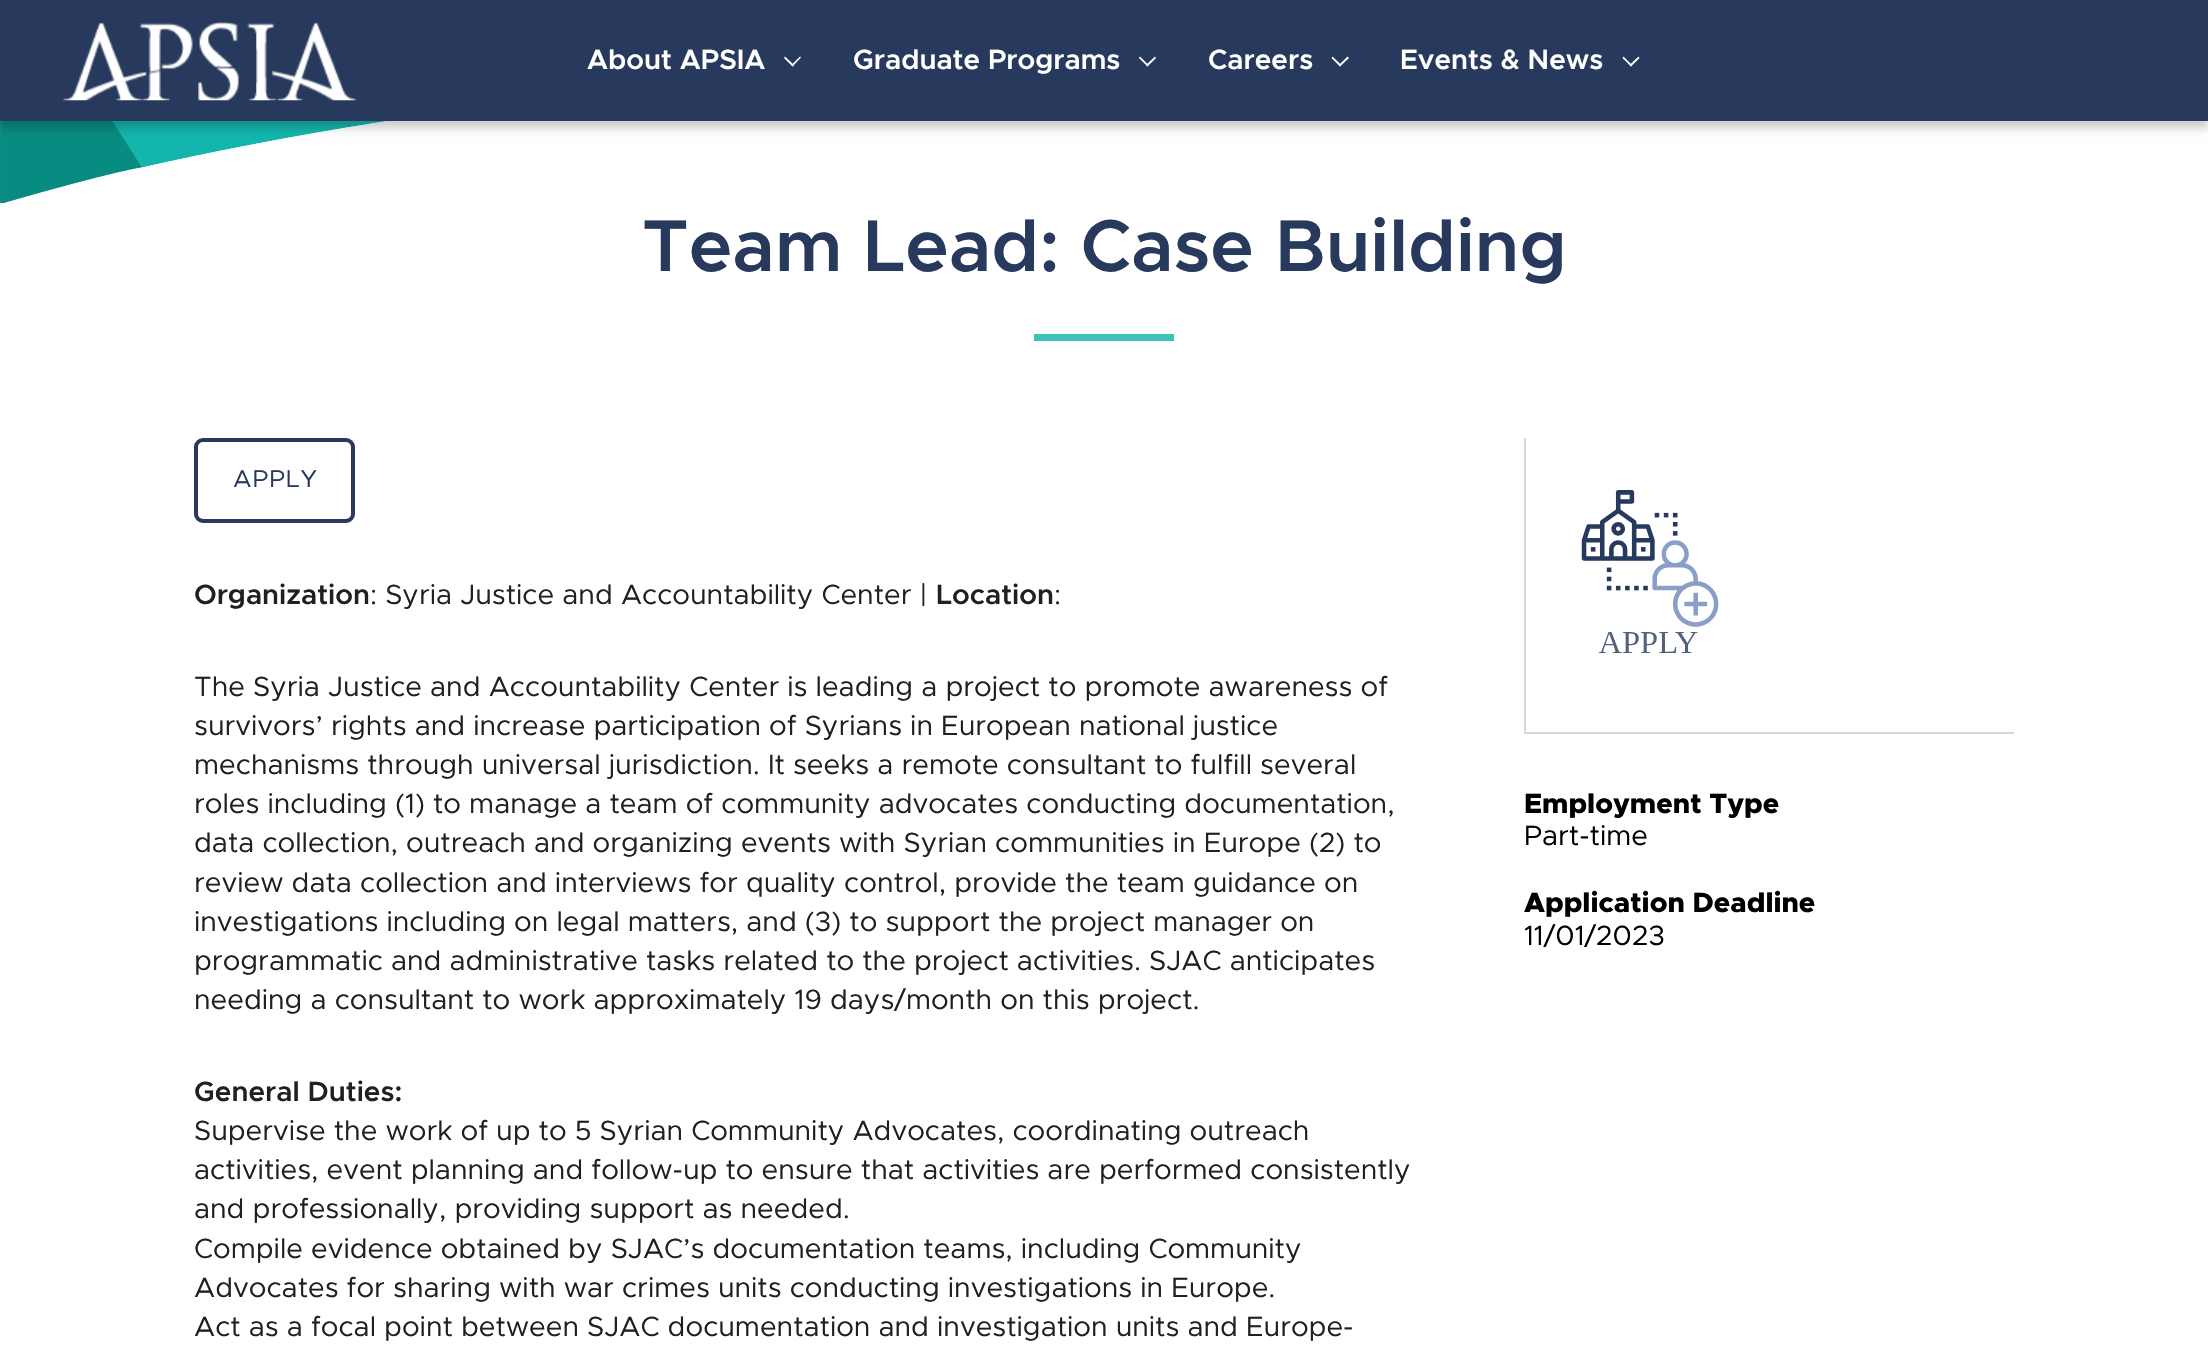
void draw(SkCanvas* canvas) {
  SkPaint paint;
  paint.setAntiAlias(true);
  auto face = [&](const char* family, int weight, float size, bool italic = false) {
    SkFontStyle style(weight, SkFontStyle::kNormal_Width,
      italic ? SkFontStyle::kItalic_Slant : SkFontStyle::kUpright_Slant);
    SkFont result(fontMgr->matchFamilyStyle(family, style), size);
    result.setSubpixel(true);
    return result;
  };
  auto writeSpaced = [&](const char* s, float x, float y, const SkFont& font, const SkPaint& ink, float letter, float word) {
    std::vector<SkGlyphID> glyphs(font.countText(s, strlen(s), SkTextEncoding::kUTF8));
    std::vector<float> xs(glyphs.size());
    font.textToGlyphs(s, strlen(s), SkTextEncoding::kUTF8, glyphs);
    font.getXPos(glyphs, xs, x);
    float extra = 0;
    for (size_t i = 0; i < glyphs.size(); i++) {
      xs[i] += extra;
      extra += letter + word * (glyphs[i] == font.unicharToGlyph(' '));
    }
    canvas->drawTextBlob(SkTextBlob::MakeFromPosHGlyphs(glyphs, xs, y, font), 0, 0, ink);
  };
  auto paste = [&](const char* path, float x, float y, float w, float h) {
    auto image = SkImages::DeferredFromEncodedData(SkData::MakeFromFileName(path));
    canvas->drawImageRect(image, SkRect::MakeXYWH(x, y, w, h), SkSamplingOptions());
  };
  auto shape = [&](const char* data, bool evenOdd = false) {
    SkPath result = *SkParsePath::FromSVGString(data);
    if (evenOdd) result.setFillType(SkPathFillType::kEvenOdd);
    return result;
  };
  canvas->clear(0xffffffff);
  paste("img/2.png", 0, 121, 2208, 82);
  paint.setColor(0x33000000);
  paint.setMaskFilter(SkMaskFilter::MakeBlur(kNormal_SkBlurStyle, 4.5f));
  canvas->drawRect(SkRect::MakeXYWH(0, -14, 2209, 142), paint);
  paint.setMaskFilter(nullptr);
  paint.setColor(0xff27395c);
  canvas->drawRect(SkRect::MakeXYWH(0, 0, 2208, 121), paint);
  paste("img/1.png", 63, 22, 294, 79);
  paint.setColor(0xffffffff);
  canvas->drawPath(shape("M800 56.5L801 57.5L792.5 66.5L791.5 65Z"), paint);
  canvas->drawPath(shape("M785 56.5L794 65L792.5 66.5L784 58Z"), paint);
  canvas->drawPath(shape("M1155 56.5L1156 58L1147.5 66.5L1146 65Z"), paint);
  canvas->drawPath(shape("M1140 56.5L1148.5 65L1147.5 66.5L1139 58Z"), paint);
  canvas->drawPath(shape("M1347.5 56.5L1349 58L1340 66.5L1339 65Z"), paint);
  canvas->drawPath(shape("M1332.5 56.5L1341.5 65L1340 66.5L1331.5 58Z"), paint);
  canvas->drawPath(shape("M1638.5 56.5L1639.5 58L1631 66.5L1629.5 65Z"), paint);
  canvas->drawPath(shape("M1623.5 56.5L1632 65L1631 66.5L1622.5 58Z"), paint);
  paint.setColor(0xff3bc2b9);
  canvas->drawRect(SkRect::MakeXYWH(1034, 334, 140, 7), paint);
  paint.setStroke(true);
  paint.setStrokeWidth(4);
  paint.setColor(0xff27395c);
  canvas->drawRoundRect(SkRect::MakeXYWH(196, 440, 157, 81), 7, 7, paint);
  paint.setStroke(false);
  paint.setColor(0xffd8d8d8);
  canvas->drawRect(SkRect::MakeXYWH(1524, 732, 490, 2), paint);
  canvas->drawRect(SkRect::MakeXYWH(1524, 438, 2, 295), paint);
  paste("img/3.png", 1581, 490, 138, 163);
  auto f0 = face("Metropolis", 600, 28);
  paint.setColor(0xffffffff);
  {
    const struct { const char* s; float x, y; } items[] = {
      {"About APSIA", 587, 69},
      {"Graduate Programs", 853, 69},
      {"Careers", 1208, 69},
      {"Events & News", 1400, 69},
    };
    for (auto [s, x, y] : items) {
      canvas->drawString(s, x, y, f0, paint);
    }
  }
  auto f1 = face("Metropolis", 600, 73.5f);
  paint.setColor(0xff27395c);
  canvas->drawString("Team Lead: Case Building", 642, 271, f1, paint);
  auto f2 = face("Metropolis", 400, 24.5f);
  writeSpaced("APPLY", 233, 487, f2, paint, 1, 0);
  paint.setColor(0xff231f20);
  canvas->drawString("Organization", 194, 604, f0, paint);
  auto f3 = face("Metropolis", 400, 28);
  canvas->drawString(": Syria Justice and Accountability Center |", 370, 604, f3, paint);
  canvas->drawString("Location", 936, 604, f0, paint);
  {
    const struct { const char* s; float x, y; } items[] = {
      {":", 1054, 604},
      {"The Syria Justice and Accountability Center is leading a project to promote awareness of", 194, 696},
      {"survivors’ rights and increase participation of Syrians in European national justice", 194, 735},
      {"mechanisms through universal jurisdiction. It seeks a remote consultant to fulfill several", 194, 774},
      {"roles including (1) to manage a team of community advocates conducting documentation,", 194, 813},
      {"data collection, outreach and organizing events with Syrian communities in Europe (2) to", 194, 852},
      {"review data collection and interviews for quality control, provide the team guidance on", 194, 892},
      {"investigations including on legal matters, and (3) to support the project manager on", 194, 931},
      {"programmatic and administrative tasks related to the project activities. SJAC anticipates", 194, 970},
      {"needing a consultant to work approximately 19 days/month on this project.", 194, 1009},
    };
    for (auto [s, x, y] : items) {
      canvas->drawString(s, x, y, f3, paint);
    }
  }
  canvas->drawString("General Duties:", 194, 1101, f0, paint);
  {
    const struct { const char* s; float x, y; } items[] = {
      {"Supervise the work of up to 5 Syrian Community Advocates, coordinating outreach", 194, 1140},
      {"activities, event planning and follow-up to ensure that activities are performed consistently", 194, 1179},
      {"and professionally, providing support as needed.", 194, 1218},
      {"Compile evidence obtained by SJAC’s documentation teams, including Community", 194, 1258},
      {"Advocates for sharing with war crimes units conducting investigations in Europe.", 194, 1297},
      {"Act as a focal point between SJAC documentation and investigation units and Europe-", 194, 1336},
    };
    for (auto [s, x, y] : items) {
      canvas->drawString(s, x, y, f3, paint);
    }
  }
  auto f4 = face("Metropolis", 800, 28);
  paint.setColor(0xff000000);
  canvas->drawString("Employment Type", 1524, 813, f4, paint);
  canvas->drawString("Part-time", 1524, 845, f3, paint);
  canvas->drawString("Application Deadline", 1524, 912, f4, paint);
  canvas->drawString("11/01/2023", 1524, 945, f3, paint);
}
